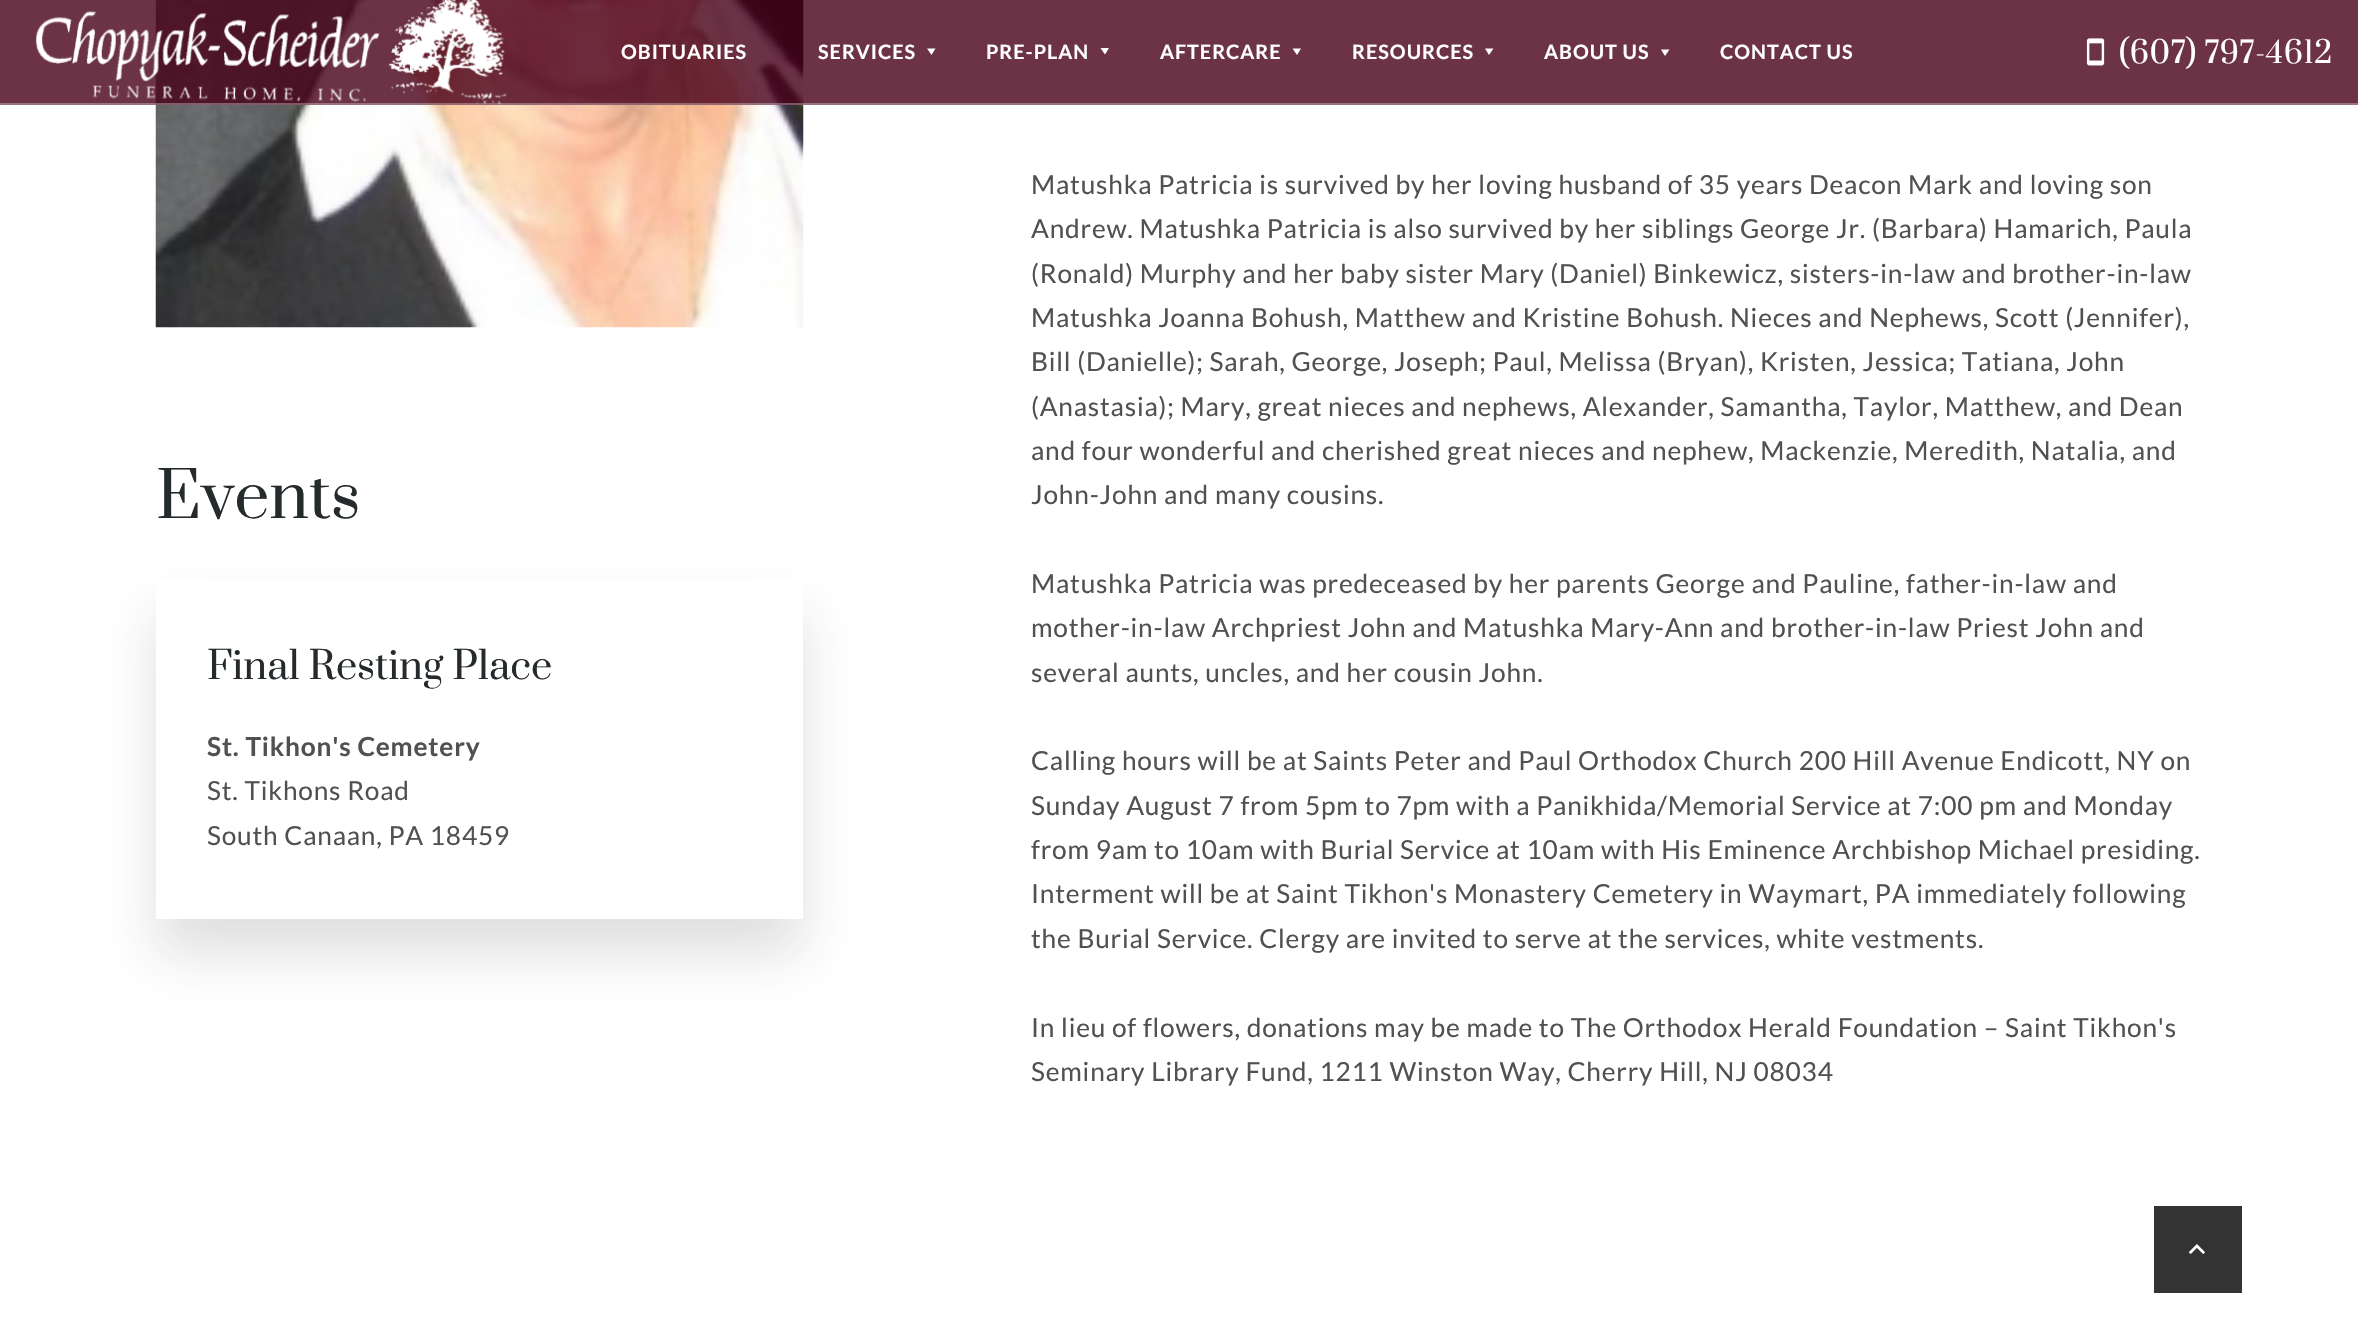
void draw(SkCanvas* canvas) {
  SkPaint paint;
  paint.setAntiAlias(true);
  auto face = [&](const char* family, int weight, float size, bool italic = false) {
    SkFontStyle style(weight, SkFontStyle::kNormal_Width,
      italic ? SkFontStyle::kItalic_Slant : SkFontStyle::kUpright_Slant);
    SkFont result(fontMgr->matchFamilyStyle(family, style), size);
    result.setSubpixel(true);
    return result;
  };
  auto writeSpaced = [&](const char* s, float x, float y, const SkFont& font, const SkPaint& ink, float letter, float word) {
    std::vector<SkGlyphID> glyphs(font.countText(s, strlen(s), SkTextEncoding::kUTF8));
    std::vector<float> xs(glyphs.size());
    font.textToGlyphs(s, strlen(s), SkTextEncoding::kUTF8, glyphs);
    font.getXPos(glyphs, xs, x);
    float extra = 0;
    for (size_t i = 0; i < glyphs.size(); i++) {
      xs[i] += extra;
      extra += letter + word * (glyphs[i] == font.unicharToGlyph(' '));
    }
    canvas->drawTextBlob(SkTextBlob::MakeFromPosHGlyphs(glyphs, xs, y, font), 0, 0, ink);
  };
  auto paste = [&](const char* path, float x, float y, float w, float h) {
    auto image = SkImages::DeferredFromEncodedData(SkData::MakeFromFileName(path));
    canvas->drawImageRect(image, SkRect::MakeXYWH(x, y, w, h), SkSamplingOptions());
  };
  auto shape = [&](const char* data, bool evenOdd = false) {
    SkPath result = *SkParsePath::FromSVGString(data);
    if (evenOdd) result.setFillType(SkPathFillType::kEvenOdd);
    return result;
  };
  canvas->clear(0xffffffff);
  paste("img/3.png", 155, 0, 649, 328);
  paint.setColor(0xcc470019);
  canvas->drawRect(SkRect::MakeXYWH(0, 0, 2358, 105), paint);
  paint.setColor(0x4dffffff);
  canvas->drawRect(SkRect::MakeXYWH(0, 103, 2358, 2), paint);
  paste("img/1.png", 36, 0, 471, 110);
  paint.setColor(0xffffffff);
  canvas->drawPath(shape("M935.5 48.5H927L931.5 55Z"), paint);
  canvas->drawPath(shape("M1109 48H1100.5L1105 54.5Z"), paint);
  canvas->drawPath(shape("M1301 48.5H1292.5L1297 55Z"), paint);
  canvas->drawPath(shape("M1493.5 48.5H1485L1489 55Z"), paint);
  canvas->drawPath(shape("M1669.5 49.5H1661L1665 56Z"), paint);
  paste("img/2.png", 2086, 38, 19, 28);
  canvas->save();
  canvas->clipPath(shape("M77 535H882V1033H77ZM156 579H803V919H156Z", true), true);
  paint.setColor(0x26252a2d);
  paint.setMaskFilter(SkMaskFilter::MakeBlur(kNormal_SkBlurStyle, 26));
  canvas->drawRect(SkRect::MakeXYWH(156, 614, 647, 340), paint);
  paint.setMaskFilter(nullptr);
  canvas->restore();
  paint.setColor(0xff333333);
  canvas->drawRect(SkRect::MakeXYWH(2154, 1206, 88, 87), paint);
  paste("img/4.png", 2188, 1244, 17, 10);
  auto f0 = face("Lato", 700, 19.75f);
  paint.setColor(0xffffffff);
  {
    const struct { const char* s; float x, y; } items[] = {
      {"OBITUARIES", 621, 59},
      {"SERVICES", 818, 59},
      {"PRE-PLAN", 986, 59},
      {"AFTERCARE", 1160, 59},
      {"RESOURCES", 1352, 59},
      {"ABOUT US", 1544, 59},
      {"CONTACT US", 1720, 59},
    };
    for (auto [s, x, y] : items) {
      writeSpaced(s, x, y, f0, paint, 1, 0);
    }
  }
  auto f1 = face("Prata", 400, 29.5f);
  writeSpaced("(607) 797-4612", 2119, 63, f1, paint, 0.6f, 0);
  auto f2 = face("Lato", 400, 26.25f);
  paint.setColor(0xff515151);
  {
    const struct { const char* s; float x, y; } items[] = {
      {"Matushka Patricia is survived by her loving husband of 35 years Deacon Mark and loving son", 1031, 194},
      {"Andrew. Matushka Patricia is also survived by her siblings George Jr. (Barbara) Hamarich, Paula", 1031, 238},
      {"(Ronald) Murphy and her baby sister Mary (Daniel) Binkewicz, sisters-in-law and brother-in-law", 1031, 283},
      {"Matushka Joanna Bohush, Matthew and Kristine Bohush. Nieces and Nephews, Scott (Jennifer),", 1031, 327},
      {"Bill (Danielle); Sarah, George, Joseph; Paul, Melissa (Bryan), Kristen, Jessica; Tatiana, John", 1031, 371},
      {"(Anastasia); Mary, great nieces and nephews, Alexander, Samantha, Taylor, Matthew, and Dean", 1031, 416},
      {"and four wonderful and cherished great nieces and nephew, Mackenzie, Meredith, Natalia, and", 1031, 460},
      {"John-John and many cousins.", 1031, 504},
      {"Matushka Patricia was predeceased by her parents George and Pauline, father-in-law and", 1031, 593},
      {"mother-in-law Archpriest John and Matushka Mary-Ann and brother-in-law Priest John and", 1031, 637},
      {"several aunts, uncles, and her cousin John.", 1031, 682},
      {"Calling hours will be at Saints Peter and Paul Orthodox Church 200 Hill Avenue Endicott, NY on", 1031, 770},
      {"Sunday August 7 from 5pm to 7pm with a Panikhida/Memorial Service at 7:00 pm and Monday", 1031, 815},
      {"from 9am to 10am with Burial Service at 10am with His Eminence Archbishop Michael presiding.", 1031, 859},
      {"Interment will be at Saint Tikhon's Monastery Cemetery in Waymart, PA immediately following", 1031, 903},
      {"the Burial Service. Clergy are invited to serve at the services, white vestments.", 1031, 948},
      {"In lieu of flowers, donations may be made to The Orthodox Herald Foundation – Saint Tikhon's", 1031, 1037},
      {"Seminary Library Fund, 1211 Winston Way, Cherry Hill, NJ 08034", 1031, 1081},
    };
    for (auto [s, x, y] : items) {
      writeSpaced(s, x, y, f2, paint, 0.8f, 0);
    }
  }
  auto f3 = face("Prata", 400, 62.5f);
  paint.setColor(0xff252a2d);
  canvas->drawString("Events", 156, 518, f3, paint);
  auto f4 = face("Prata", 400, 37.75f);
  canvas->drawString("Final Resting Place", 207, 679, f4, paint);
  auto f5 = face("Lato", 700, 26.25f);
  paint.setColor(0xff515151);
  writeSpaced("St. Tikhon's Cemetery", 207, 756, f5, paint, 0.8f, 0);
  writeSpaced("St. Tikhons Road", 207, 800, f2, paint, 0.8f, 0);
  writeSpaced("South Canaan, PA 18459", 207, 845, f2, paint, 0.8f, 0);
}
